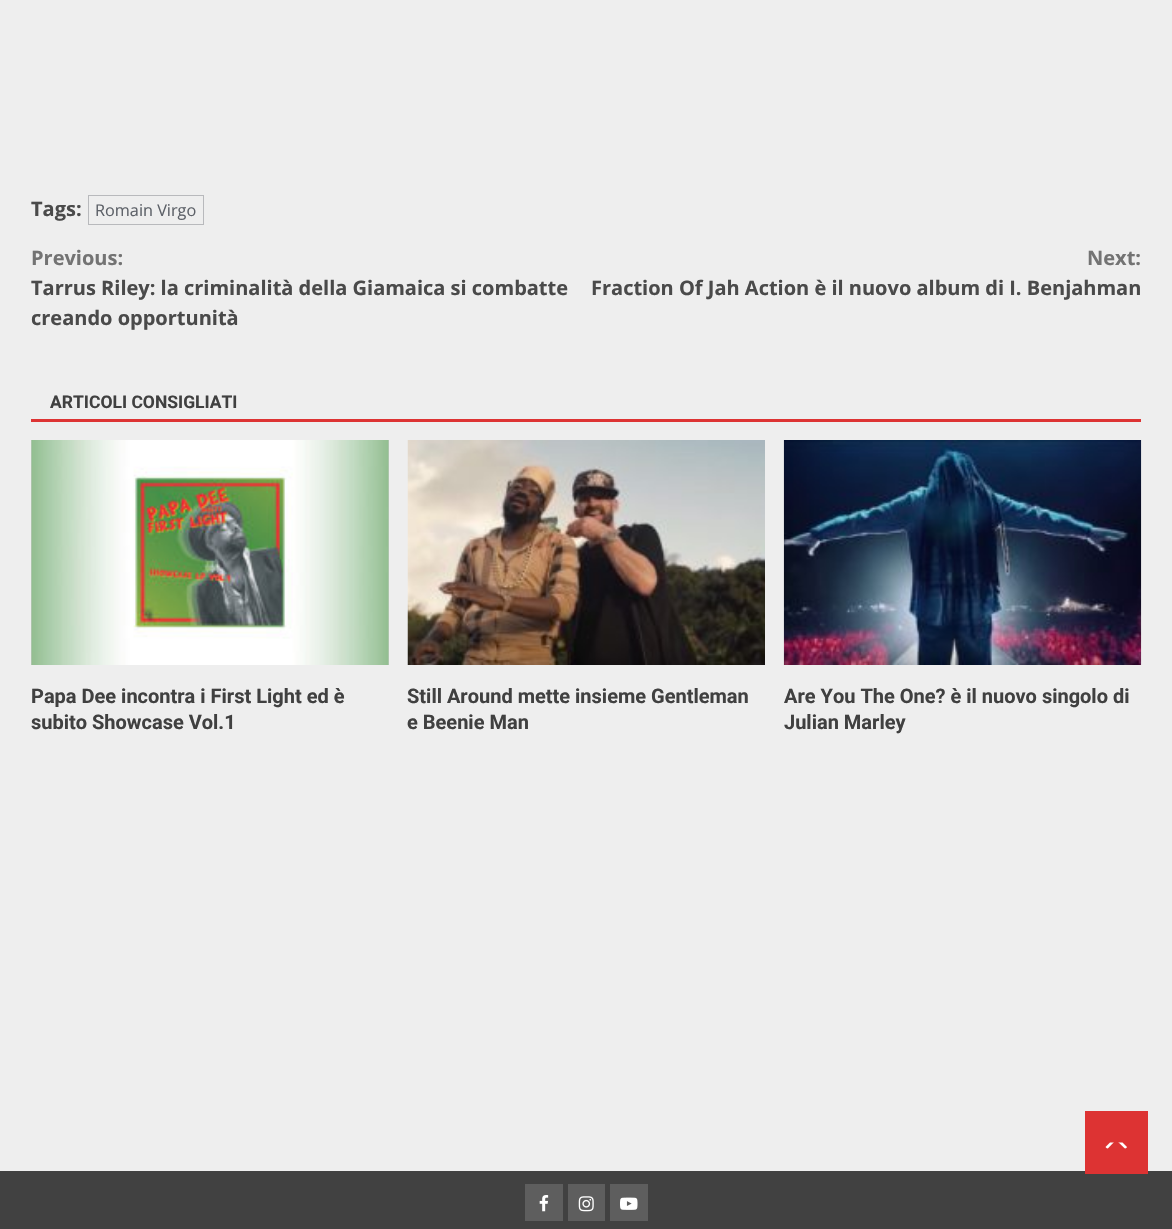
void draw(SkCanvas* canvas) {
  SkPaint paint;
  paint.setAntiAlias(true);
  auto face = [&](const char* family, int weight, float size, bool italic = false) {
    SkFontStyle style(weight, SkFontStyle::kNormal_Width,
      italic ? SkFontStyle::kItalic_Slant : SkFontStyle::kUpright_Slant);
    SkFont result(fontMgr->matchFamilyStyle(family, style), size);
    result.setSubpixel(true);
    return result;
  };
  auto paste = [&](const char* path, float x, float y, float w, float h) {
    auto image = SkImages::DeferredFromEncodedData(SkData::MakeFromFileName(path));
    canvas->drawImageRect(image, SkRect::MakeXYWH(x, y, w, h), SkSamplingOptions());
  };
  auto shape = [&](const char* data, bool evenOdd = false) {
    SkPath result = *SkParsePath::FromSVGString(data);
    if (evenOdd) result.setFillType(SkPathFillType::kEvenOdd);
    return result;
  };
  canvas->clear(0xffeeeeee);
  paint.setStroke(true);
  paint.setStrokeWidth(1);
  paint.setColor(0xffb8b9bc);
  canvas->drawRect(SkRect::MakeXYWH(88.5f, 195.5f, 115, 29), paint);
  paint.setStroke(false);
  paint.setColor(0xffdd3333);
  canvas->drawRect(SkRect::MakeXYWH(31, 419, 1110, 3), paint);
  paint.setColor(0xffcccccc);
  canvas->drawRect(SkRect::MakeXYWH(31, 440, 358, 225), paint);
  paste("img/1.png", 31, 440, 358, 225);
  paste("img/2.png", 407, 440, 358, 225);
  paste("img/3.png", 783, 440, 359, 225);
  paint.setColor(0xff414141);
  canvas->drawRect(SkRect::MakeXYWH(0, 1171, 1172, 58), paint);
  paint.setColor(0xff5e5e5e);
  canvas->drawRect(SkRect::MakeXYWH(525, 1184, 38, 37), paint);
  paste("img/4.png", 539, 1195, 10, 17);
  canvas->drawRect(SkRect::MakeXYWH(568, 1184, 37, 37), paint);
  paste("img/5.png", 578, 1196, 16, 16);
  canvas->drawRect(SkRect::MakeXYWH(610, 1184, 38, 37), paint);
  paste("img/6.png", 620, 1197, 18, 13);
  paint.setColor(0xffdd3333);
  canvas->drawRect(SkRect::MakeXYWH(1085, 1111, 63, 63), paint);
  paint.setColor(0xffffffff);
  canvas->drawPath(shape("M1108.5 1149C1107 1148.5 1106.5 1148 1105.5 1147L1110 1142.5H1122.5L1127 1147C1126.5 1148 1125.5 1148.5 1124 1149Z"), paint);
  paint.setColor(0xffdd3333);
  canvas->drawPath(shape("M1129 1152.5H1104L1116 1140Z"), paint);
  auto f0 = face("Open Sans", 700, 20);
  paint.setColor(0xff4a4a4a);
  canvas->drawString("Tags:", 31, 216, f0, paint);
  auto f1 = face("Open Sans", 400, 16.25f);
  paint.setColor(0xff5d6168);
  canvas->drawString("Romain Virgo", 95, 216, f1, paint);
  paint.setColor(0xff737373);
  canvas->drawString("Previous:", 31, 265, f0, paint);
  paint.setColor(0xff4a4a4a);
  canvas->drawString("Tarrus Riley: la criminalità della Giamaica si combatte", 31, 295, f0, paint);
  canvas->drawString("creando opportunità", 31, 325, f0, paint);
  paint.setColor(0xff737373);
  canvas->drawString("Next:", 1087, 265, f0, paint);
  paint.setColor(0xff4a4a4a);
  canvas->drawString("Fraction Of Jah Action è il nuovo album di I. Benjahman", 591, 295, f0, paint);
  auto f2 = face("Roboto", 700, 17.5f);
  paint.setColor(0xff404040);
  canvas->drawString("ARTICOLI CONSIGLIATI", 50, 408, f2, paint);
  auto f3 = face("Roboto", 700, 20);
  {
    const struct { const char* s; float x, y; } items[] = {
      {"Papa Dee incontra i First Light ed è", 31, 703},
      {"subito Showcase Vol.1", 31, 729},
      {"Still Around mette insieme Gentleman", 407, 703},
      {"e Beenie Man", 407, 729},
      {"Are You The One? è il nuovo singolo di", 784, 703},
      {"Julian Marley", 784, 729},
    };
    for (auto [s, x, y] : items) {
      canvas->drawString(s, x, y, f3, paint);
    }
  }
}
